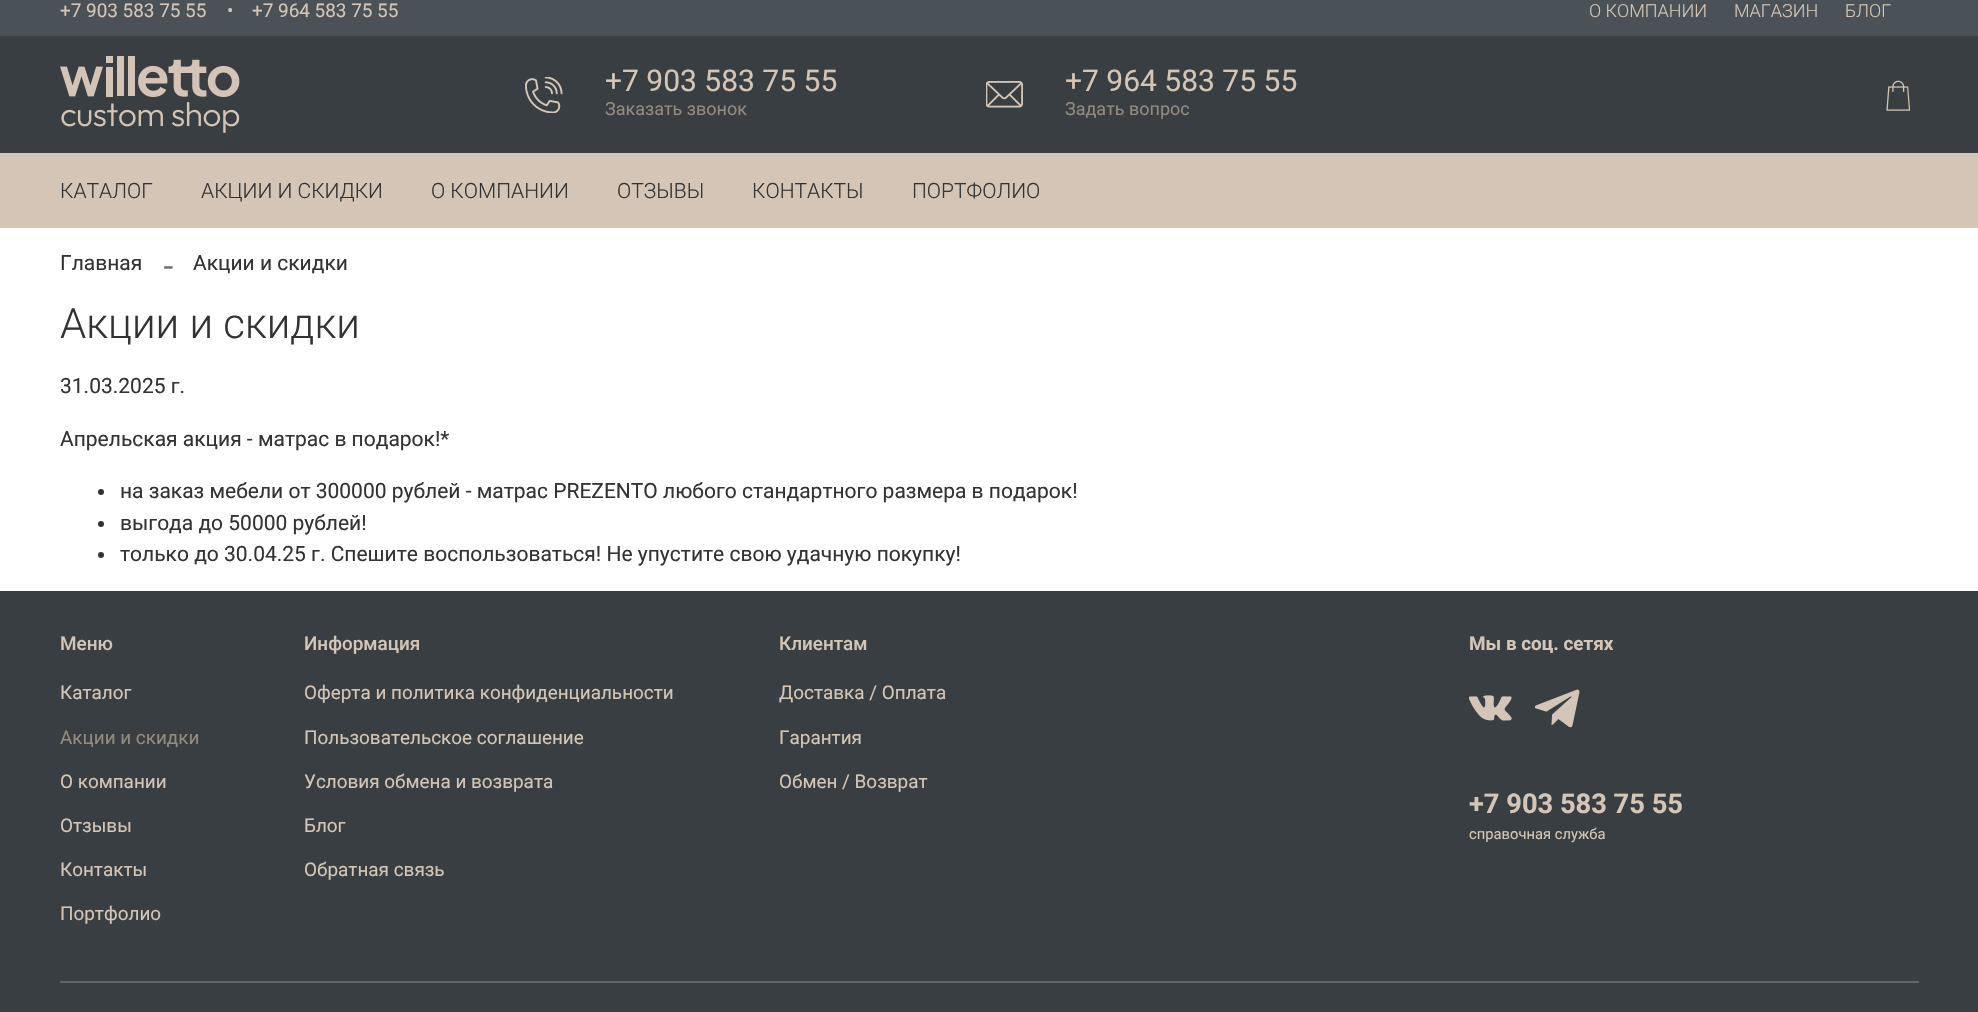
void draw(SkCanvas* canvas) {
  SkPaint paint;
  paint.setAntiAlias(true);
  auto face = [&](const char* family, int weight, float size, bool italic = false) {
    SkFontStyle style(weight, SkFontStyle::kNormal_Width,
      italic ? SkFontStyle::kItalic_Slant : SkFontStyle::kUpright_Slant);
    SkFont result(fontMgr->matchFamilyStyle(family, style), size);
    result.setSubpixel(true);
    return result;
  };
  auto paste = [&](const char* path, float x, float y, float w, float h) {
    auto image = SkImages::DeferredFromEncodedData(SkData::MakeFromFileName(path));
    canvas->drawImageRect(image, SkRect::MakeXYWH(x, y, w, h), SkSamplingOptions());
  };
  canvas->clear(0xffffffff);
  paint.setColor(0xff4a5257);
  canvas->drawRect(SkRect::MakeXYWH(0, 0, 1978, 36), paint);
  paint.setColor(0xff383e42);
  canvas->drawRect(SkRect::MakeXYWH(0, 36, 1978, 117), paint);
  paste("img/1.png", 60, 56, 180, 77);
  paste("img/2.png", 525, 77, 38, 36);
  paste("img/3.png", 986, 81, 37, 27);
  paste("img/4.png", 1886, 80, 25, 31);
  paint.setColor(0xffd4c5b6);
  canvas->drawRect(SkRect::MakeXYWH(0, 153, 1978, 75), paint);
  paint.setColor(0xff333333);
  canvas->drawCircle(101, 492, 3, paint);
  canvas->drawCircle(101, 524, 3, paint);
  canvas->drawCircle(101, 555, 3, paint);
  paint.setColor(0xff383e42);
  canvas->drawRect(SkRect::MakeXYWH(0, 591, 1978, 421), paint);
  paste("img/5.png", 1469, 695, 43, 26);
  paste("img/6.png", 1535, 689, 45, 39);
  paint.setColor(0xff5c666c);
  canvas->drawRect(SkRect::MakeXYWH(60, 981, 1859, 2), paint);
  auto f0 = face("Roboto", 400, 18.9f);
  paint.setColor(0xffd4c5b6);
  {
    const struct { const char* s; float x, y; } items[] = {
      {"+7 903 583 75 55", 60, 17},
      {"•", 227, 17},
      {"+7 964 583 75 55", 252, 17},
    };
    for (auto [s, x, y] : items) {
      canvas->drawString(s, x, y, f0, paint);
    }
  }
  auto f1 = face("Roboto", 300, 18);
  {
    const struct { const char* s; float x, y; } items[] = {
      {"О КОМПАНИИ", 1589, 17},
      {"МАГАЗИН", 1734, 17},
      {"БЛОГ", 1845, 17},
    };
    for (auto [s, x, y] : items) {
      canvas->drawString(s, x, y, f1, paint);
    }
  }
  auto f2 = face("Roboto", 400, 30);
  canvas->drawString("+7 903 583 75 55", 605, 91, f2, paint);
  auto f3 = face("Roboto", 400, 18);
  paint.setColor(0xff948a7f);
  canvas->drawString("Заказать звонок", 605, 115, f3, paint);
  paint.setColor(0xffd4c5b6);
  canvas->drawString("+7 964 583 75 55", 1065, 91, f2, paint);
  paint.setColor(0xff948a7f);
  canvas->drawString("Задать вопрос", 1065, 115, f3, paint);
  auto f4 = face("Roboto", 300, 21);
  paint.setColor(0xff333333);
  {
    const struct { const char* s; float x, y; } items[] = {
      {"КАТАЛОГ", 60, 198},
      {"АКЦИИ И СКИДКИ", 201, 198},
      {"О КОМПАНИИ", 431, 198},
      {"ОТЗЫВЫ", 617, 198},
      {"КОНТАКТЫ", 752, 198},
      {"ПОРТФОЛИО", 912, 198},
    };
    for (auto [s, x, y] : items) {
      canvas->drawString(s, x, y, f4, paint);
    }
  }
  auto f5 = face("Roboto", 400, 21);
  canvas->drawString("Главная", 60, 270, f5, paint);
  auto f6 = face("Liberation Serif", 400, 32);
  paint.setColor(0xff707070);
  canvas->drawString("-", 163, 275, f6, paint);
  paint.setColor(0xff333333);
  canvas->drawString("Акции и скидки", 193, 270, f5, paint);
  auto f7 = face("Roboto", 300, 42);
  canvas->drawString("Акции и скидки", 60, 338, f7, paint);
  {
    const struct { const char* s; float x, y; } items[] = {
      {"31.03.2025 г.", 60, 393},
      {"Апрельская акция - матрас в подарок!*", 60, 446},
      {"на заказ мебели от 300000 рублей - матрас PREZENTO любого стандартного размера в подарок!", 120, 498},
      {"выгода до 50000 рублей!", 120, 530},
      {"только до 30.04.25 г. Спешите воспользоваться! Не упустите свою удачную покупку!", 120, 561},
    };
    for (auto [s, x, y] : items) {
      canvas->drawString(s, x, y, f5, paint);
    }
  }
  auto f8 = face("Roboto", 500, 18.9f);
  paint.setColor(0xffd4c5b6);
  canvas->drawString("Меню", 60, 650, f8, paint);
  canvas->drawString("Каталог", 60, 699, f0, paint);
  paint.setColor(0xff948a7f);
  canvas->drawString("Акции и скидки", 60, 744, f0, paint);
  paint.setColor(0xffd4c5b6);
  {
    const struct { const char* s; float x, y; } items[] = {
      {"О компании", 60, 788},
      {"Отзывы", 60, 832},
      {"Контакты", 60, 876},
      {"Портфолио", 60, 920},
    };
    for (auto [s, x, y] : items) {
      canvas->drawString(s, x, y, f0, paint);
    }
  }
  canvas->drawString("Информация", 304, 650, f8, paint);
  {
    const struct { const char* s; float x, y; } items[] = {
      {"Оферта и политика конфиденциальности", 304, 699},
      {"Пользовательское соглашение", 304, 744},
      {"Условия обмена и возврата", 304, 788},
      {"Блог", 304, 832},
      {"Обратная связь", 304, 876},
    };
    for (auto [s, x, y] : items) {
      canvas->drawString(s, x, y, f0, paint);
    }
  }
  canvas->drawString("Клиентам", 779, 650, f8, paint);
  {
    const struct { const char* s; float x, y; } items[] = {
      {"Доставка / Оплата", 779, 699},
      {"Гарантия", 779, 744},
      {"Обмен / Возврат", 779, 788},
    };
    for (auto [s, x, y] : items) {
      canvas->drawString(s, x, y, f0, paint);
    }
  }
  auto f9 = face("Roboto", 700, 18.9f);
  canvas->drawString("Мы в соц. сетях", 1469, 650, f9, paint);
  auto f10 = face("Roboto", 700, 27.25f);
  canvas->drawString("+7 903 583 75 55", 1469, 813, f10, paint);
  auto f11 = face("Roboto", 400, 14.75f);
  canvas->drawString("справочная служба", 1469, 839, f11, paint);
}
